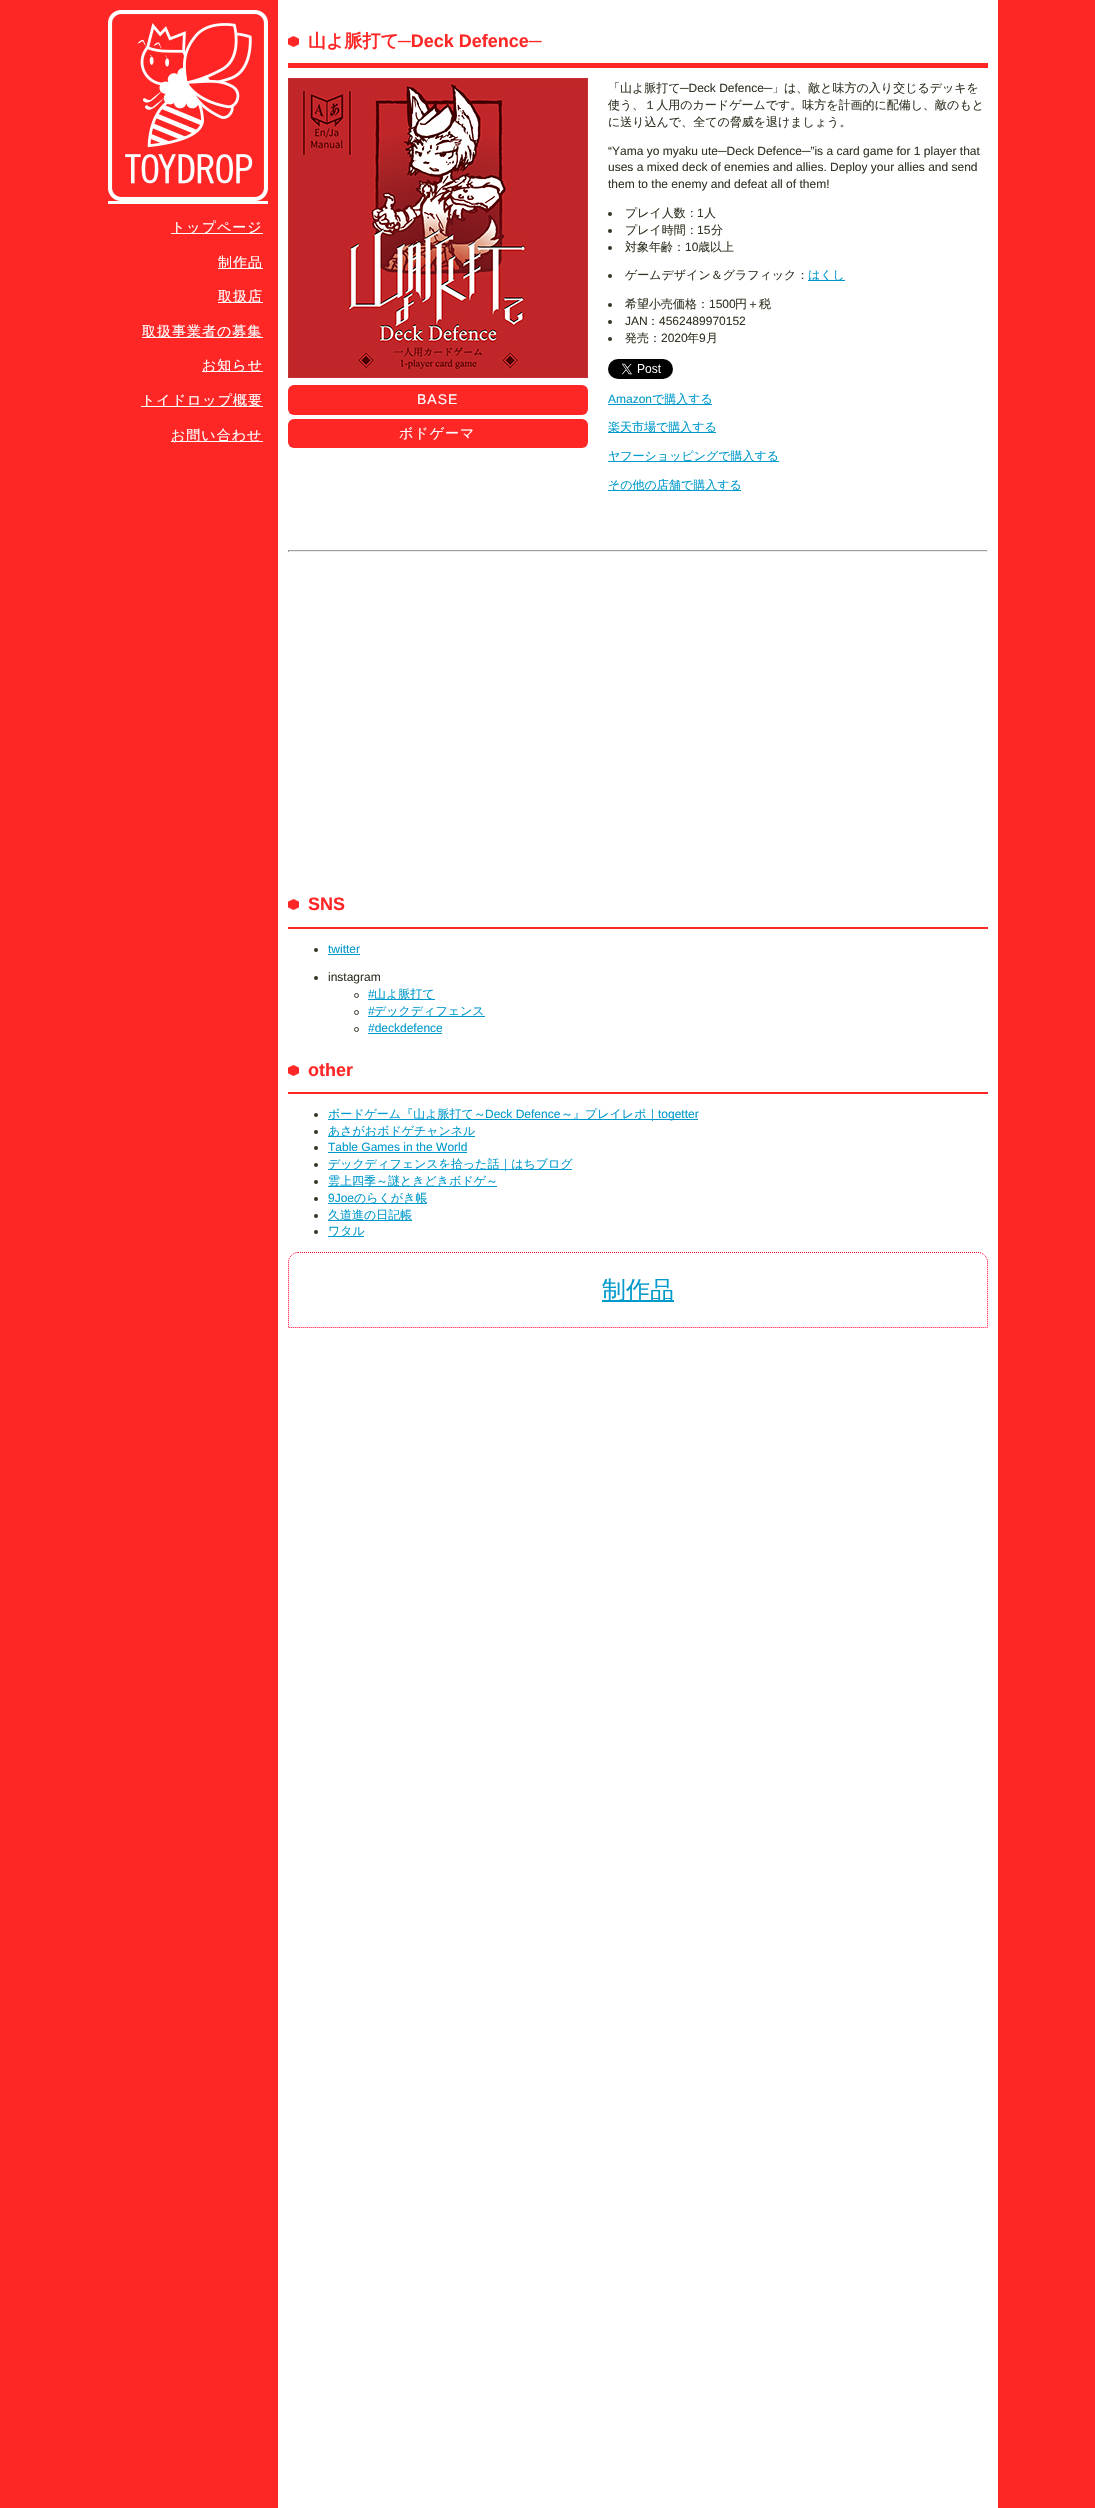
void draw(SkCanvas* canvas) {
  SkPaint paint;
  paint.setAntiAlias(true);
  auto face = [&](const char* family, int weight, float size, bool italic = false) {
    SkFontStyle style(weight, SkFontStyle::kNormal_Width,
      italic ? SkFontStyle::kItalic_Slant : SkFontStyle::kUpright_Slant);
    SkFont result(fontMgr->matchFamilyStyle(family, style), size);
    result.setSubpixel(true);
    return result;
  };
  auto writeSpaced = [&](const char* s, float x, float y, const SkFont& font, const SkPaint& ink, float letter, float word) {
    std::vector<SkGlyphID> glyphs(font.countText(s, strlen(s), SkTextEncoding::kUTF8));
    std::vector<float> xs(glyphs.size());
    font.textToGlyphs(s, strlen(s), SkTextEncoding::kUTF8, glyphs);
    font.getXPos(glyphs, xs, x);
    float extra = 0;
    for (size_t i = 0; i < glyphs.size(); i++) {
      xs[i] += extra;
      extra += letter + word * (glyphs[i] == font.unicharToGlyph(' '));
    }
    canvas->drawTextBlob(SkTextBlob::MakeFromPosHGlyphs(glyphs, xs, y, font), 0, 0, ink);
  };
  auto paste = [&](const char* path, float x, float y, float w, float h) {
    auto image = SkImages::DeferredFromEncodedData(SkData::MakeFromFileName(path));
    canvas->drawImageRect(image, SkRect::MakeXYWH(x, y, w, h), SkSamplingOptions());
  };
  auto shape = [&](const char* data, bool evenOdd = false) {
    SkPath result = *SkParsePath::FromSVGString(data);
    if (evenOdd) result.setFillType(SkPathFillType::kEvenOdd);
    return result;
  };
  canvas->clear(0xffff2626);
  paint.setColor(0xffffffff);
  canvas->drawRect(SkRect::MakeXYWH(278, 0, 720, 2508), paint);
  paste("img/1.png", 108, 10, 160, 191);
  {
    const struct { float x, y, w, h; SkColor color; } items[] = {
      {108, 201, 160, 3, 0xffffffff},
      {171, 233, 92, 1, 0xffffffff},
      {218, 268, 45, 1, 0xffffffff},
      {218, 302, 45, 1, 0xffffffff},
      {142, 337, 121, 1, 0xffffffff},
      {202, 371, 61, 1, 0xffffffff},
      {141, 406, 122, 1, 0xffffffff},
      {171, 441, 92, 1, 0xffffffff},
    };
    for (auto [x, y, w, h, color] : items) {
      paint.setColor(color);
      canvas->drawRect(SkRect::MakeXYWH(x, y, w, h), paint);
    }
  }
  paste("img/2.png", 288, 36, 11, 11);
  paint.setColor(0xffff2626);
  canvas->drawRect(SkRect::MakeXYWH(288, 63, 700, 5), paint);
  paint.setColor(0xff343426);
  canvas->drawCircle(610, 214, 2, paint);
  canvas->drawCircle(610, 231, 2, paint);
  canvas->drawCircle(610, 248, 2, paint);
  canvas->drawCircle(610, 276, 2, paint);
  paint.setColor(0xff0099cc);
  canvas->drawRect(SkRect::MakeXYWH(808, 280, 37, 1), paint);
  paint.setColor(0xff343426);
  canvas->drawCircle(610, 305, 2, paint);
  canvas->drawCircle(610, 322, 2, paint);
  canvas->drawCircle(610, 339, 2, paint);
  paste("img/3.png", 608, 359, 65, 20);
  paste("img/4.png", 288, 78, 300, 300);
  paint.setColor(0xffff2626);
  canvas->drawRoundRect(SkRect::MakeXYWH(288, 385, 300, 30), 6, 6, paint);
  canvas->drawRoundRect(SkRect::MakeXYWH(288, 419, 300, 29), 6, 6, paint);
  {
    const struct { float x, y, w, h; SkColor color; } items[] = {
      {608, 404, 104, 1, 0xff0099cc},
      {608, 432, 108, 1, 0xff0099cc},
      {608, 461, 171, 1, 0xff0099cc},
      {608, 490, 133, 1, 0xff0099cc},
      {288, 550, 700, 1, 0xff9f9f9f},
      {987, 550, 1, 2, 0xffeeeeee},
      {288, 551, 700, 1, 0xffeeeeee},
      {288, 550, 1, 2, 0xff9f9f9f},
    };
    for (auto [x, y, w, h, color] : items) {
      paint.setColor(color);
      canvas->drawRect(SkRect::MakeXYWH(x, y, w, h), paint);
    }
  }
  paste("img/2.png", 288, 899, 11, 11);
  paint.setColor(0xffff2626);
  canvas->drawRect(SkRect::MakeXYWH(288, 927, 700, 2), paint);
  paint.setColor(0xff343426);
  canvas->drawCircle(316, 950, 2, paint);
  paint.setColor(0xff0099cc);
  canvas->drawRect(SkRect::MakeXYWH(328, 954, 32, 1), paint);
  paint.setColor(0xff343426);
  canvas->drawCircle(316, 978, 2, paint);
  paint.setStroke(true);
  paint.setStrokeWidth(1);
  canvas->drawCircle(356.5f, 995.5f, 2, paint);
  paint.setStroke(false);
  paint.setColor(0xff0099cc);
  canvas->drawRect(SkRect::MakeXYWH(368, 999, 67, 1), paint);
  paint.setStroke(true);
  paint.setColor(0xff343426);
  canvas->drawCircle(356.5f, 1012.5f, 2, paint);
  paint.setStroke(false);
  paint.setColor(0xff0099cc);
  canvas->drawRect(SkRect::MakeXYWH(368, 1016, 117, 1), paint);
  paint.setStroke(true);
  paint.setColor(0xff343426);
  canvas->drawCircle(356.5f, 1029.5f, 2, paint);
  paint.setStroke(false);
  paint.setColor(0xff0099cc);
  canvas->drawRect(SkRect::MakeXYWH(368, 1033, 74, 1), paint);
  paste("img/2.png", 288, 1065, 11, 11);
  paint.setColor(0xffff2626);
  canvas->drawRect(SkRect::MakeXYWH(288, 1092, 700, 2), paint);
  paint.setColor(0xff343426);
  canvas->drawCircle(316, 1115, 2, paint);
  paint.setColor(0xff0099cc);
  canvas->drawRect(SkRect::MakeXYWH(328, 1119, 370, 1), paint);
  paint.setColor(0xff343426);
  canvas->drawCircle(316, 1132, 2, paint);
  paint.setColor(0xff0099cc);
  canvas->drawRect(SkRect::MakeXYWH(328, 1136, 147, 1), paint);
  paint.setColor(0xff343426);
  canvas->drawCircle(316, 1148, 2, paint);
  paint.setColor(0xff0099cc);
  canvas->drawRect(SkRect::MakeXYWH(328, 1152, 139, 1), paint);
  paint.setColor(0xff343426);
  canvas->drawCircle(316, 1165, 2, paint);
  paint.setColor(0xff0099cc);
  canvas->drawRect(SkRect::MakeXYWH(328, 1169, 244, 1), paint);
  paint.setColor(0xff343426);
  canvas->drawCircle(316, 1182, 2, paint);
  paint.setColor(0xff0099cc);
  canvas->drawRect(SkRect::MakeXYWH(328, 1186, 169, 1), paint);
  paint.setColor(0xff343426);
  canvas->drawCircle(316, 1199, 2, paint);
  paint.setColor(0xff0099cc);
  canvas->drawRect(SkRect::MakeXYWH(328, 1203, 99, 1), paint);
  paint.setColor(0xff343426);
  canvas->drawCircle(316, 1216, 2, paint);
  paint.setColor(0xff0099cc);
  canvas->drawRect(SkRect::MakeXYWH(328, 1220, 84, 1), paint);
  paint.setColor(0xff343426);
  canvas->drawCircle(316, 1232, 2, paint);
  paint.setColor(0xff0099cc);
  canvas->drawRect(SkRect::MakeXYWH(328, 1236, 36, 1), paint);
  paint.setStroke(true);
  paint.setColor(0xffff0033);
  paint.setPathEffect(SkDashPathEffect::Make({{1, 1}}, 0));
  canvas->drawPath(shape("M298 1252.5H978C983 1252.5 987.5 1257 987.5 1262V1327.5H288.5V1262C288.5 1257 293 1252.5 298 1252.5Z"), paint);
  paint.setPathEffect(nullptr);
  paint.setStroke(false);
  paint.setColor(0xff0099cc);
  canvas->drawRect(SkRect::MakeXYWH(602, 1300, 72, 2), paint);
  auto f0 = face("WenQuanYi Zen Hei", 500, 14);
  paint.setColor(0xffffffff);
  {
    const struct { const char* s; float x, y; } items[] = {
      {"トップページ", 171, 232},
      {"制作品", 218, 267},
      {"取扱店", 218, 301},
      {"取扱事業者の募集", 142, 336},
      {"お知らせ", 202, 370},
      {"トイドロップ概要", 141, 405},
      {"お問い合わせ", 171, 440},
    };
    for (auto [s, x, y] : items) {
      writeSpaced(s, x, y, f0, paint, 1, 0);
    }
  }
  auto f1 = face("WenQuanYi Zen Hei", 700, 18);
  paint.setColor(0xffff2626);
  canvas->drawString("山よ脈打て", 308, 47, f1, paint);
  auto f2 = face("Liberation Sans", 700, 18);
  canvas->drawString("─Deck Defence─", 398, 47, f2, paint);
  auto f3 = face("WenQuanYi Zen Hei", 500, 12);
  paint.setColor(0xff343426);
  canvas->drawString("「山よ脈打て", 608, 92, f3, paint);
  auto f4 = face("Liberation Sans", 400, 12);
  canvas->drawString("─Deck Defence─", 680, 92, f4, paint);
  {
    const struct { const char* s; float x, y; } items[] = {
      {"」は、敵と味方の入り交じるデッキを", 772, 92},
      {"使う、１人用のカードゲームです。味方を計画的に配備し、敵のもと", 608, 109},
      {"に送り込んで、全ての脅威を退けましょう。", 608, 126},
    };
    for (auto [s, x, y] : items) {
      canvas->drawString(s, x, y, f3, paint);
    }
  }
  {
    const struct { const char* s; float x, y; } items[] = {
      {"“Yama yo myaku ute─Deck Defence─”is a card game for 1 player that", 608, 155},
      {"uses a mixed deck of enemies and allies. Deploy your allies and send", 608, 171},
      {"them to the enemy and defeat all of them!", 608, 188},
    };
    for (auto [s, x, y] : items) {
      canvas->drawString(s, x, y, f4, paint);
    }
  }
  canvas->drawString("プレイ人数：", 625, 217, f3, paint);
  canvas->drawString("1", 697, 217, f4, paint);
  canvas->drawString("人", 704, 217, f3, paint);
  canvas->drawString("プレイ時間：", 625, 234, f3, paint);
  canvas->drawString("15", 697, 234, f4, paint);
  canvas->drawString("分", 711, 234, f3, paint);
  canvas->drawString("対象年齢：", 625, 251, f3, paint);
  canvas->drawString("10", 685, 251, f4, paint);
  canvas->drawString("歳以上", 698, 251, f3, paint);
  canvas->drawString("ゲームデザイン＆グラフィック：", 625, 279, f3, paint);
  paint.setColor(0xff0099cc);
  canvas->drawString("はくし", 808, 279, f3, paint);
  paint.setColor(0xff343426);
  canvas->drawString("希望小売価格：", 625, 308, f3, paint);
  canvas->drawString("1500", 709, 308, f4, paint);
  canvas->drawString("円＋税", 735, 308, f3, paint);
  canvas->drawString("JAN", 625, 325, f4, paint);
  canvas->drawString("：", 647, 325, f3, paint);
  canvas->drawString("4562489970152", 659, 325, f4, paint);
  canvas->drawString("発売：", 625, 342, f3, paint);
  canvas->drawString("2020", 661, 342, f4, paint);
  canvas->drawString("年", 687, 342, f3, paint);
  canvas->drawString("9", 699, 342, f4, paint);
  canvas->drawString("月", 706, 342, f3, paint);
  auto f5 = face("Liberation Sans", 400, 14);
  paint.setColor(0xffffffff);
  writeSpaced("BASE", 417, 404, f5, paint, 1, 0);
  writeSpaced("ボドゲーマ", 399, 438, f0, paint, 1, 0);
  paint.setColor(0xff0099cc);
  canvas->drawString("Amazon", 608, 403, f4, paint);
  {
    const struct { const char* s; float x, y; } items[] = {
      {"で購入する", 652, 403},
      {"楽天市場で購入する", 608, 431},
      {"ヤフーショッピングで購入する", 608, 460},
      {"その他の店舗で購入する", 608, 489},
    };
    for (auto [s, x, y] : items) {
      canvas->drawString(s, x, y, f3, paint);
    }
  }
  paint.setColor(0xffff2626);
  canvas->drawString("SNS", 308, 910, f2, paint);
  paint.setColor(0xff0099cc);
  canvas->drawString("twitter", 328, 953, f4, paint);
  paint.setColor(0xff343426);
  canvas->drawString("instagram", 328, 981, f4, paint);
  paint.setColor(0xff0099cc);
  canvas->drawString("#", 368, 998, f4, paint);
  canvas->drawString("山よ脈打て", 374, 998, f3, paint);
  canvas->drawString("#", 368, 1015, f4, paint);
  canvas->drawString("デックディフェンス", 374, 1015, f3, paint);
  canvas->drawString("#deckdefence", 368, 1032, f4, paint);
  paint.setColor(0xffff2626);
  canvas->drawString("other", 308, 1076, f2, paint);
  paint.setColor(0xff0099cc);
  canvas->drawString("ボードゲーム『山よ脈打て～", 328, 1118, f3, paint);
  canvas->drawString("Deck Defence", 485, 1118, f4, paint);
  canvas->drawString("～』プレイレポ｜", 561, 1118, f3, paint);
  canvas->drawString("togetter", 658, 1118, f4, paint);
  canvas->drawString("あさがおボドゲチャンネル", 328, 1135, f3, paint);
  canvas->drawString("Table Games in the World", 328, 1151, f4, paint);
  canvas->drawString("デックディフェンスを拾った話｜はちブログ", 328, 1168, f3, paint);
  canvas->drawString("雲上四季～謎ときどきボドゲ～", 328, 1185, f3, paint);
  canvas->drawString("9Joe", 328, 1202, f4, paint);
  {
    const struct { const char* s; float x, y; } items[] = {
      {"のらくがき帳", 354, 1202},
      {"久道進の日記帳", 328, 1219},
      {"ワタル", 328, 1235},
    };
    for (auto [s, x, y] : items) {
      canvas->drawString(s, x, y, f3, paint);
    }
  }
  auto f6 = face("WenQuanYi Zen Hei", 500, 24);
  canvas->drawString("制作品", 602, 1298, f6, paint);
}
